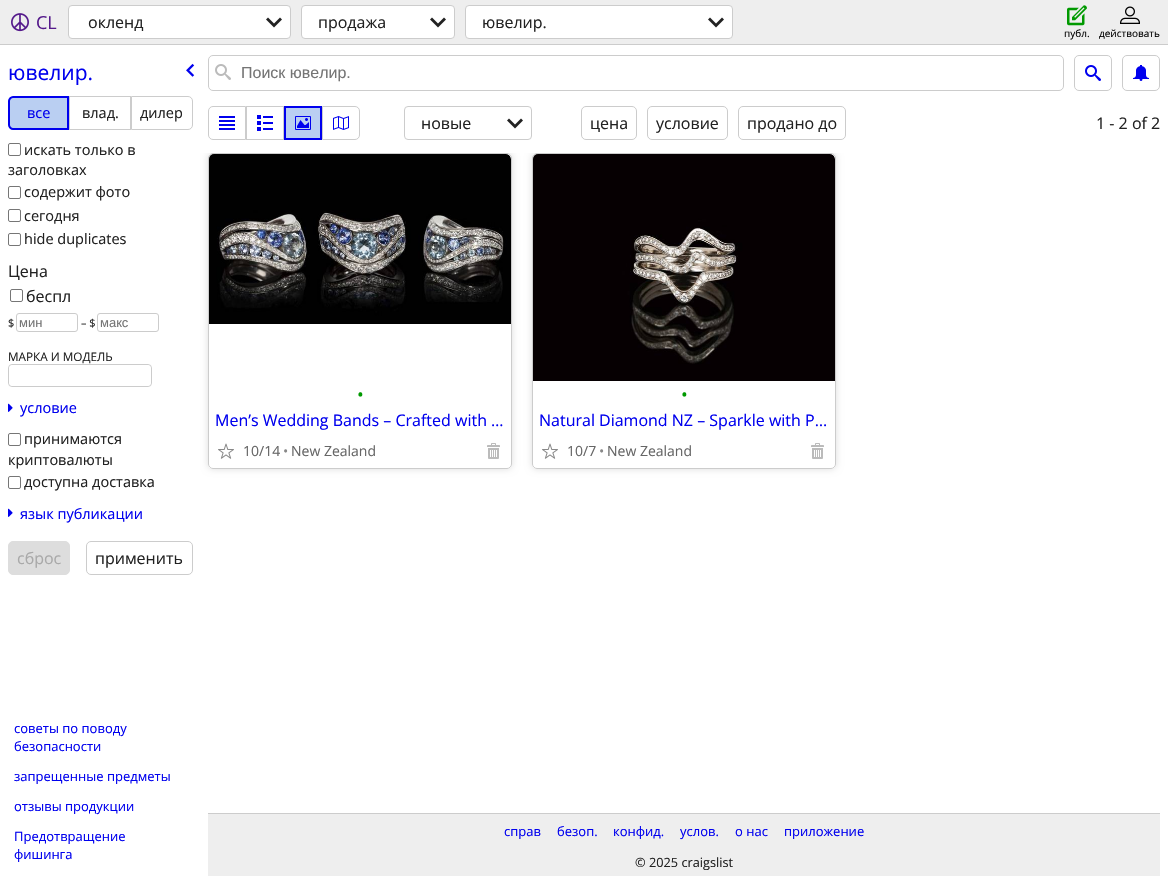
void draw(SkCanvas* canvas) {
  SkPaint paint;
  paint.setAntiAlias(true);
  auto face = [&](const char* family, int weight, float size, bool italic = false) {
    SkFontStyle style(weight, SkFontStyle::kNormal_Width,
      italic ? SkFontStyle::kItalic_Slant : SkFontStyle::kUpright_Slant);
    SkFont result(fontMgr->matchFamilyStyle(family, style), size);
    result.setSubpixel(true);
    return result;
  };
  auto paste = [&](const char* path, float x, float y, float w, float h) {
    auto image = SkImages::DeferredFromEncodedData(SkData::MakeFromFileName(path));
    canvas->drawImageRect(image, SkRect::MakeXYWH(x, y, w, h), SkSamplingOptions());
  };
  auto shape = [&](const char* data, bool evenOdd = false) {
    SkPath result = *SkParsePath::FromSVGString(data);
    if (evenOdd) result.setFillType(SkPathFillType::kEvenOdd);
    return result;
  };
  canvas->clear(0xffffffff);
  paint.setColor(0xffeeeeee);
  canvas->drawRect(SkRect::MakeXYWH(0, 0, 1168, 44), paint);
  paint.setColor(0xffcccccc);
  canvas->drawRect(SkRect::MakeXYWH(0, 44, 1168, 1), paint);
  paste("img/1.png", 11, 13, 18, 19);
  paint.setColor(0xffffffff);
  canvas->drawRoundRect(SkRect::MakeXYWH(68.5f, 5.5f, 222, 33), 3.5f, 3.5f, paint);
  paint.setStroke(true);
  paint.setStrokeWidth(1);
  paint.setColor(0xffcccccc);
  canvas->drawRoundRect(SkRect::MakeXYWH(68.5f, 5.5f, 222, 33), 3.5f, 3.5f, paint);
  paste("img/2.png", 266, 17, 16, 11);
  paint.setStroke(false);
  paint.setColor(0xffffffff);
  canvas->drawRoundRect(SkRect::MakeXYWH(301.5f, 5.5f, 153, 33), 3.5f, 3.5f, paint);
  paint.setStroke(true);
  paint.setColor(0xffcccccc);
  canvas->drawRoundRect(SkRect::MakeXYWH(301.5f, 5.5f, 153, 33), 3.5f, 3.5f, paint);
  paste("img/2.png", 430, 17, 16, 11);
  paint.setStroke(false);
  paint.setColor(0xffffffff);
  canvas->drawRoundRect(SkRect::MakeXYWH(465.5f, 5.5f, 267, 33), 3.5f, 3.5f, paint);
  paint.setStroke(true);
  paint.setColor(0xffcccccc);
  canvas->drawRoundRect(SkRect::MakeXYWH(465.5f, 5.5f, 267, 33), 3.5f, 3.5f, paint);
  paste("img/2.png", 708, 17, 16, 11);
  paste("img/3.png", 1067, 5, 20, 21);
  paste("img/4.png", 1120, 6, 20, 18);
  paste("img/5.png", 186, 63, 9, 14);
  paint.setStroke(false);
  paint.setColor(0xffbacff2);
  canvas->drawPath(shape("M13 97H68V129H13C11 129 9 127 9 125V101C9 99 11 97 13 97Z"), paint);
  paint.setStroke(true);
  paint.setStrokeWidth(2);
  paint.setColor(0xff0000ee);
  canvas->drawPath(shape("M13 97H68V129H13C11 129 9 127 9 125V101C9 99 11 97 13 97Z"), paint);
  paint.setStrokeWidth(1);
  paint.setColor(0xffcccccc);
  canvas->drawRect(SkRect::MakeXYWH(69.5f, 96.5f, 61, 33), paint);
  canvas->drawPath(shape("M131.5 96.5H188C190.5 96.5 192.5 98.5 192.5 101V125C192.5 127.5 190.5 129.5 188 129.5H131.5Z"), paint);
  paint.setColor(0xff767676);
  canvas->drawRoundRect(SkRect::MakeXYWH(8.5f, 143.5f, 12, 12), 1.5f, 1.5f, paint);
  canvas->drawRoundRect(SkRect::MakeXYWH(8.5f, 186.5f, 12, 12), 1.5f, 1.5f, paint);
  canvas->drawRoundRect(SkRect::MakeXYWH(8.5f, 209.5f, 12, 12), 1.5f, 1.5f, paint);
  canvas->drawRoundRect(SkRect::MakeXYWH(8.5f, 233.5f, 12, 12), 1.5f, 1.5f, paint);
  canvas->drawRoundRect(SkRect::MakeXYWH(10.5f, 289.5f, 12, 12), 1.5f, 1.5f, paint);
  paint.setColor(0xffcccccc);
  canvas->drawRoundRect(SkRect::MakeXYWH(16.5f, 313.5f, 61, 18), 2.5f, 2.5f, paint);
  canvas->drawRoundRect(SkRect::MakeXYWH(97.5f, 313.5f, 61, 18), 2.5f, 2.5f, paint);
  canvas->drawRoundRect(SkRect::MakeXYWH(8.5f, 364.5f, 143, 22), 3.5f, 3.5f, paint);
  canvas->save();
  canvas->clipPath(shape("M12 365H148C149.5 365 151 366.5 151 368V383C151 384.5 149.5 386 148 386H12C10.5 386 9 384.5 9 383V368C9 366.5 10.5 365 12 365Z"), true);
  paint.setStroke(false);
  paint.setColor(0xffffffff);
  canvas->drawRoundRect(SkRect::MakeXYWH(9, 365, 142, 21), 4, 4, paint);
  canvas->restore();
  paste("img/6.png", 8, 403, 5, 9);
  paint.setStroke(true);
  paint.setColor(0xff767676);
  canvas->drawRoundRect(SkRect::MakeXYWH(8.5f, 433.5f, 12, 12), 1.5f, 1.5f, paint);
  canvas->drawRoundRect(SkRect::MakeXYWH(8.5f, 476.5f, 12, 12), 1.5f, 1.5f, paint);
  paste("img/6.png", 8, 508, 5, 9);
  paint.setStroke(false);
  paint.setColor(0xffdddddd);
  canvas->drawRoundRect(SkRect::MakeXYWH(8.5f, 541.5f, 61, 33), 4.5f, 4.5f, paint);
  paint.setStroke(true);
  canvas->drawRoundRect(SkRect::MakeXYWH(8.5f, 541.5f, 61, 33), 4.5f, 4.5f, paint);
  paint.setColor(0xffcccccc);
  canvas->drawRoundRect(SkRect::MakeXYWH(86.5f, 541.5f, 106, 33), 4.5f, 4.5f, paint);
  canvas->drawRoundRect(SkRect::MakeXYWH(208.5f, 55.5f, 855, 35), 4.5f, 4.5f, paint);
  paste("img/7.png", 215, 64, 16, 16);
  canvas->drawRoundRect(SkRect::MakeXYWH(1074.5f, 55.5f, 37, 35), 4.5f, 4.5f, paint);
  paste("img/8.png", 1085, 65, 16, 16);
  canvas->drawRoundRect(SkRect::MakeXYWH(1122.5f, 55.5f, 37, 35), 4.5f, 4.5f, paint);
  paste("img/9.png", 1133, 65, 16, 16);
  canvas->drawPath(shape("M213 106.5H245.5V139.5H213C210.5 139.5 208.5 137.5 208.5 135V111C208.5 108.5 210.5 106.5 213 106.5Z"), paint);
  paste("img/10.png", 219, 116, 16, 14);
  canvas->drawRect(SkRect::MakeXYWH(246.5f, 106.5f, 37, 33), paint);
  paste("img/11.png", 257, 115, 16, 16);
  paint.setStroke(false);
  paint.setColor(0xffbacff2);
  canvas->drawRect(SkRect::MakeXYWH(285, 107, 36, 32), paint);
  paint.setStroke(true);
  paint.setStrokeWidth(2);
  paint.setColor(0xff0000ee);
  canvas->drawRect(SkRect::MakeXYWH(285, 107, 36, 32), paint);
  paste("img/12.png", 295, 116, 16, 14);
  paint.setStrokeWidth(1);
  paint.setColor(0xffcccccc);
  canvas->drawPath(shape("M322.5 106.5H355C357.5 106.5 359.5 108.5 359.5 111V135C359.5 137.5 357.5 139.5 355 139.5H322.5Z"), paint);
  paste("img/13.png", 333, 116, 16, 14);
  canvas->drawRoundRect(SkRect::MakeXYWH(404.5f, 106.5f, 127, 33), 3.5f, 3.5f, paint);
  paste("img/2.png", 507, 118, 16, 11);
  canvas->drawRoundRect(SkRect::MakeXYWH(581.5f, 106.5f, 55, 33), 4.5f, 4.5f, paint);
  canvas->drawRoundRect(SkRect::MakeXYWH(647.5f, 106.5f, 80, 33), 4.5f, 4.5f, paint);
  canvas->drawRoundRect(SkRect::MakeXYWH(738.5f, 106.5f, 107, 33), 4.5f, 4.5f, paint);
  canvas->save();
  canvas->clipRect(SkRect::MakeXYWH(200, 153, 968, 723));
  canvas->clipPath(shape("M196 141H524V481H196ZM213 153H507C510 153 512 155 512 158V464C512 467 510 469 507 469H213C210 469 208 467 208 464V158C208 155 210 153 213 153Z", true), true);
  paint.setStroke(false);
  paint.setColor(0xffdddddd);
  paint.setMaskFilter(SkMaskFilter::MakeBlur(kNormal_SkBlurStyle, 3.5f));
  canvas->drawRoundRect(SkRect::MakeXYWH(208, 153, 304, 316), 5, 5, paint);
  paint.setMaskFilter(nullptr);
  canvas->restore();
  paint.setStroke(true);
  paint.setColor(0xffcccccc);
  canvas->drawRoundRect(SkRect::MakeXYWH(208.5f, 153.5f, 303, 315), 4.5f, 4.5f, paint);
  paste("img/14.png", 209, 154, 302, 170);
  paste("img/15.png", 218, 443, 16, 16);
  paste("img/16.png", 487, 443, 13, 16);
  canvas->save();
  canvas->clipRect(SkRect::MakeXYWH(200, 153, 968, 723));
  canvas->clipPath(shape("M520 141H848V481H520ZM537 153H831C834 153 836 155 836 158V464C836 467 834 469 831 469H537C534 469 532 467 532 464V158C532 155 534 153 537 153Z", true), true);
  paint.setStroke(false);
  paint.setColor(0xffdddddd);
  paint.setMaskFilter(SkMaskFilter::MakeBlur(kNormal_SkBlurStyle, 3.5f));
  canvas->drawRoundRect(SkRect::MakeXYWH(532, 153, 304, 316), 5, 5, paint);
  paint.setMaskFilter(nullptr);
  canvas->restore();
  paint.setStroke(true);
  paint.setColor(0xffcccccc);
  canvas->drawRoundRect(SkRect::MakeXYWH(532.5f, 153.5f, 303, 315), 4.5f, 4.5f, paint);
  paste("img/17.png", 533, 154, 302, 227);
  paste("img/15.png", 542, 443, 16, 16);
  paste("img/16.png", 811, 443, 13, 16);
  paint.setStroke(false);
  paint.setColor(0xffeeeeee);
  canvas->drawRect(SkRect::MakeXYWH(208, 814, 952, 62), paint);
  paint.setColor(0xffcccccc);
  canvas->drawRect(SkRect::MakeXYWH(208, 813, 952, 1), paint);
  auto f0 = face("Open Sans", 400, 18);
  paint.setColor(0xff551a8b);
  canvas->drawString("CL", 36, 29, f0, paint);
  auto f1 = face("Open Sans", 400, 16);
  paint.setColor(0xff222222);
  {
    const struct { const char* s; float x, y; } items[] = {
      {"окленд", 88, 28},
      {"продажа", 318, 28},
      {"ювелир.", 482, 28},
    };
    for (auto [s, x, y] : items) {
      canvas->drawString(s, x, y, f1, paint);
    }
  }
  auto f2 = face("Open Sans", 400, 10);
  paint.setColor(0xff000000);
  canvas->drawString("публ.", 1064, 37, f2, paint);
  canvas->drawString("действовать", 1099, 37, f2, paint);
  auto f3 = face("Open Sans", 400, 21);
  paint.setColor(0xff0000ee);
  canvas->drawString("ювелир.", 8, 80, f3, paint);
  auto f4 = face("Open Sans", 400, 14.5f);
  canvas->drawString("все", 27, 118, f4, paint);
  paint.setColor(0xff222222);
  {
    const struct { const char* s; float x, y; } items[] = {
      {"влад.", 82, 118},
      {"дилер", 140, 118},
      {"искать только в", 24, 155},
      {"заголовках", 8, 175},
      {"содержит фото", 24, 197},
      {"сегодня", 24, 221},
      {"hide duplicates", 24, 244},
    };
    for (auto [s, x, y] : items) {
      canvas->drawString(s, x, y, f4, paint);
    }
  }
  canvas->drawString("Цена", 8, 277, f1, paint);
  canvas->drawString("беспл", 26, 302, f1, paint);
  auto f5 = face("Open Sans", 400, 11);
  canvas->drawString("$", 8, 327, f5, paint);
  auto f6 = face("Liberation Sans", 400, 13);
  paint.setColor(0xff757575);
  canvas->drawString("мин", 19, 327, f6, paint);
  paint.setColor(0xff222222);
  canvas->drawString("– $", 81, 327, f5, paint);
  paint.setColor(0xff757575);
  canvas->drawString("макс", 100, 327, f6, paint);
  auto f7 = face("Open Sans", 400, 11.75f);
  paint.setColor(0xff222222);
  canvas->drawString("МАРКА И МОДЕЛЬ", 8, 361, f7, paint);
  paint.setColor(0xff0000ee);
  canvas->drawString("условие", 20, 413, f4, paint);
  paint.setColor(0xff222222);
  {
    const struct { const char* s; float x, y; } items[] = {
      {"принимаются", 24, 444},
      {"криптовалюты", 8, 465},
      {"доступна доставка", 24, 487},
    };
    for (auto [s, x, y] : items) {
      canvas->drawString(s, x, y, f4, paint);
    }
  }
  paint.setColor(0xff0000ee);
  canvas->drawString("язык публикации", 20, 519, f4, paint);
  paint.setColor(0xffa9a9a9);
  canvas->drawString("сброс", 17, 564, f1, paint);
  paint.setColor(0xff222222);
  canvas->drawString("применить", 95, 564, f1, paint);
  auto f8 = face("Open Sans", 400, 13);
  paint.setColor(0xff0000ee);
  {
    const struct { const char* s; float x, y; } items[] = {
      {"советы по поводу", 14, 733},
      {"безопасности", 14, 751},
      {"запрещенные предметы", 14, 781},
      {"отзывы продукции", 14, 811},
      {"Предотвращение", 14, 841},
      {"фишинга", 14, 859},
    };
    for (auto [s, x, y] : items) {
      canvas->drawString(s, x, y, f8, paint);
    }
  }
  auto f9 = face("Liberation Sans", 400, 16);
  paint.setColor(0xff757575);
  canvas->drawString("Поиск ювелир.", 241, 78, f9, paint);
  paint.setColor(0xff222222);
  {
    const struct { const char* s; float x, y; } items[] = {
      {"новые", 421, 129},
      {"цена", 590, 129},
      {"условие", 656, 129},
      {"продано до", 747, 129},
      {"1 - 2 of 2", 1096, 129},
    };
    for (auto [s, x, y] : items) {
      canvas->drawString(s, x, y, f1, paint);
    }
  }
  paint.setColor(0xff009900);
  canvas->drawString("•", 357, 401, f0, paint);
  paint.setColor(0xff0000ee);
  canvas->drawString("Men’s Wedding Bands – Crafted with …", 215, 426, f1, paint);
  auto f10 = face("Open Sans", 400, 14);
  paint.setColor(0xff666666);
  canvas->drawString("10/14", 243, 456, f10, paint);
  paint.setColor(0xff888888);
  canvas->drawString("•", 283, 456, f10, paint);
  paint.setColor(0xff666666);
  canvas->drawString("New Zealand", 291, 456, f10, paint);
  paint.setColor(0xff009900);
  canvas->drawString("•", 681, 401, f0, paint);
  paint.setColor(0xff0000ee);
  canvas->drawString("Natural Diamond NZ – Sparkle with P…", 539, 426, f1, paint);
  paint.setColor(0xff666666);
  canvas->drawString("10/7", 567, 456, f10, paint);
  paint.setColor(0xff888888);
  canvas->drawString("•", 599, 456, f10, paint);
  paint.setColor(0xff666666);
  canvas->drawString("New Zealand", 607, 456, f10, paint);
  paint.setColor(0xff0000ee);
  {
    const struct { const char* s; float x, y; } items[] = {
      {"справ", 504, 836},
      {"безоп.", 557, 836},
      {"конфид.", 613, 836},
      {"услов.", 680, 836},
      {"о нас", 735, 836},
      {"приложение", 784, 836},
    };
    for (auto [s, x, y] : items) {
      canvas->drawString(s, x, y, f8, paint);
    }
  }
  auto f11 = face("Open Sans", 400, 12.75f);
  paint.setColor(0xff222222);
  canvas->drawString("© 2025 craigslist", 635, 867, f11, paint);
}
